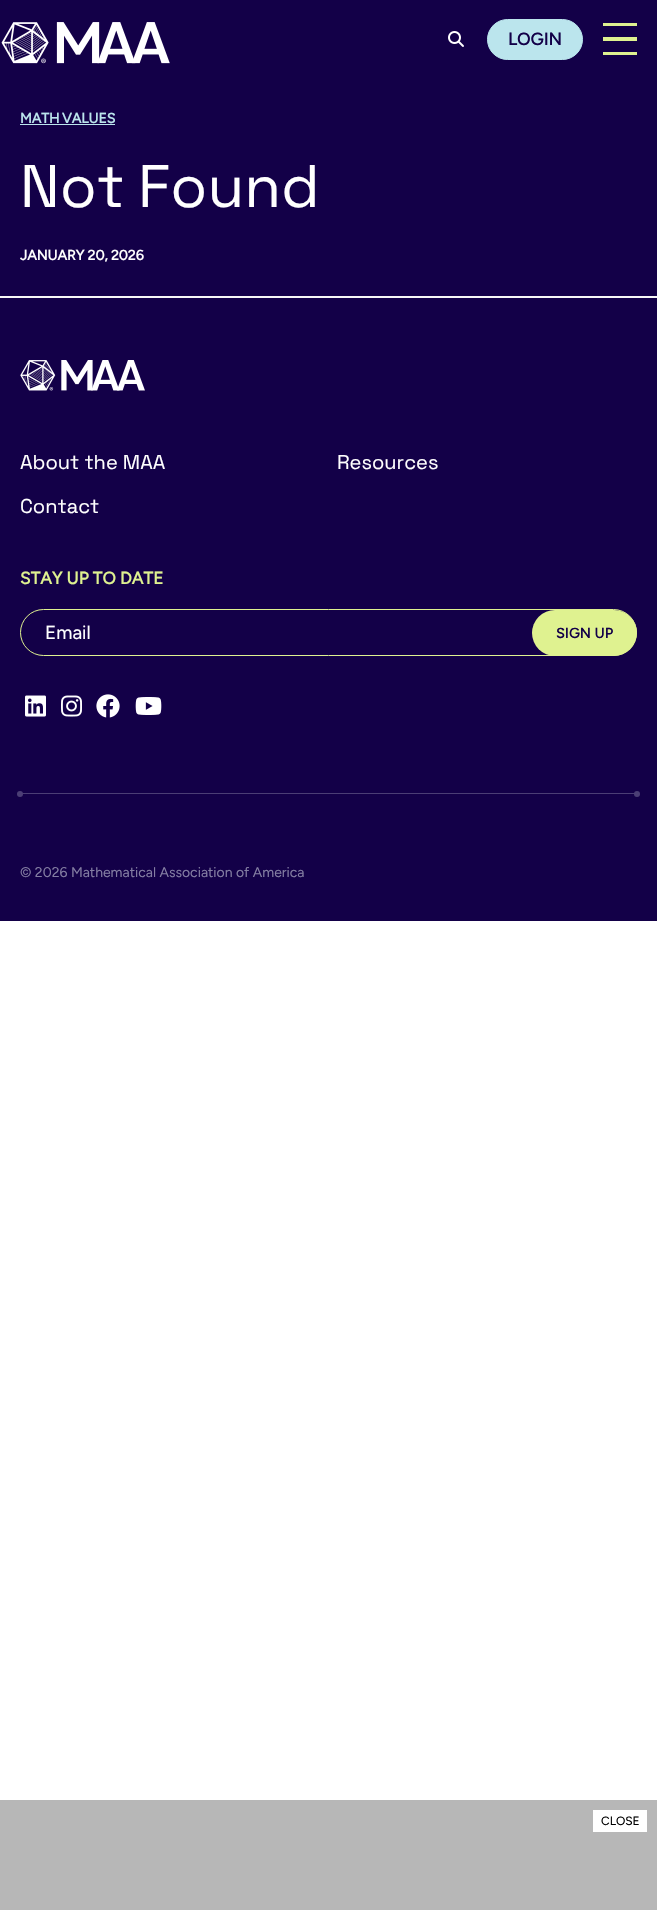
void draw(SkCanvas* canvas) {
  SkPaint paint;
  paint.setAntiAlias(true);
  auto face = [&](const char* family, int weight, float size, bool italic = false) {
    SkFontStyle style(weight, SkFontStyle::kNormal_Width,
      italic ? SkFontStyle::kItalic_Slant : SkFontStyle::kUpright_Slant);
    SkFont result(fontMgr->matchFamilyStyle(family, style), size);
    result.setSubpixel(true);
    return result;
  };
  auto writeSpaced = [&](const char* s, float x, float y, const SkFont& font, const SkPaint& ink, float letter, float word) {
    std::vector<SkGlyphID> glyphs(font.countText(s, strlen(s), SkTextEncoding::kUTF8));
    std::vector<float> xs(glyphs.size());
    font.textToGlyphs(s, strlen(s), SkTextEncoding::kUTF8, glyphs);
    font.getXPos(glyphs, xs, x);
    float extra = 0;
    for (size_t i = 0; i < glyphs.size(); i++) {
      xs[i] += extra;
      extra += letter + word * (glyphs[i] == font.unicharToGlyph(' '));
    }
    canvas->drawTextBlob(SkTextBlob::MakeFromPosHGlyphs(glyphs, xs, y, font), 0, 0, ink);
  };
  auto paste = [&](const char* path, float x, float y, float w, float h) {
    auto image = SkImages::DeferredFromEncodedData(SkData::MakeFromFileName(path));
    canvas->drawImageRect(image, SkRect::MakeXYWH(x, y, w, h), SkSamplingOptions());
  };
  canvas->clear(0xffffffff);
  paint.setColor(0xff130048);
  canvas->drawRect(SkRect::MakeXYWH(0, 0, 657, 296), paint);
  paste("img/1.png", 1, 22, 169, 42);
  paste("img/2.png", 448, 31, 16, 16);
  paint.setColor(0xffbbe5ed);
  canvas->drawRoundRect(SkRect::MakeXYWH(487.5f, 19.5f, 95, 40), 20, 20, paint);
  paint.setStroke(true);
  paint.setStrokeWidth(1);
  canvas->drawRoundRect(SkRect::MakeXYWH(487.5f, 19.5f, 95, 40), 20, 20, paint);
  paint.setStroke(false);
  {
    const struct { float x, y, w, h; SkColor color; } items[] = {
      {603, 23, 34, 3, 0xffdff290},
      {603, 37, 34, 4, 0xffdff290},
      {603, 52, 34, 3, 0xffdff290},
      {0, 296, 657, 2, 0xfff7f7f7},
      {20, 124, 95, 1, 0xffbbe5ed},
      {0, 298, 657, 623, 0xff130048},
    };
    for (auto [x, y, w, h, color] : items) {
      paint.setColor(color);
      canvas->drawRect(SkRect::MakeXYWH(x, y, w, h), paint);
    }
  }
  paste("img/3.png", 20, 360, 125, 31);
  paint.setStroke(true);
  paint.setColor(0xffdff290);
  canvas->drawRoundRect(SkRect::MakeXYWH(20.5f, 609.5f, 616, 46), 23, 23, paint);
  paint.setStroke(false);
  canvas->drawRoundRect(SkRect::MakeXYWH(532, 610, 105, 46), 23, 23, paint);
  paste("img/4.png", 25, 695, 21, 22);
  paste("img/5.png", 61, 695, 21, 22);
  paste("img/6.png", 96, 694, 24, 24);
  paste("img/7.png", 135, 697, 27, 18);
  paint.setColor(0xff4b3e75);
  canvas->drawRect(SkRect::MakeXYWH(20, 793, 617, 1), paint);
  canvas->drawCircle(20, 794, 3, paint);
  canvas->drawCircle(637, 794, 3, paint);
  paint.setColor(0xffb7b7b7);
  canvas->drawRect(SkRect::MakeXYWH(0, 1800, 657, 110), paint);
  paint.setColor(0xffffffff);
  canvas->drawRect(SkRect::MakeXYWH(593, 1810, 54, 22), paint);
  auto f0 = face("Figtree", 700, 17);
  paint.setColor(0xff130048);
  writeSpaced("LOGIN", 508, 45, f0, paint, 0.25f, 0);
  auto f1 = face("Figtree", 700, 14);
  paint.setColor(0xffbbe5ed);
  writeSpaced("MATH VALUES", 20, 123, f1, paint, 0, -1);
  auto f2 = face("Space Grotesk", 400, 60);
  paint.setColor(0xffffffff);
  writeSpaced("Not Found", 20, 207, f2, paint, 0, -2);
  canvas->drawString("JANUARY 20, 2026", 20, 260, f1, paint);
  auto f3 = face("Space Grotesk", 400, 20);
  {
    const struct { const char* s; float x, y; } items[] = {
      {"About the MAA", 20, 469},
      {"Resources", 337, 469},
      {"Contact", 20, 513},
    };
    for (auto [s, x, y] : items) {
      canvas->drawString(s, x, y, f3, paint);
    }
  }
  paint.setColor(0xffdff290);
  writeSpaced("STAY UP TO DATE", 20, 584, f0, paint, 0.25f, -0.5f);
  auto f4 = face("Figtree", 300, 19);
  paint.setColor(0xffffffff);
  canvas->drawString("Email", 45, 639, f4, paint);
  paint.setColor(0xff130048);
  writeSpaced("SIGN UP", 556, 638, f1, paint, 0.25f, 0);
  auto f5 = face("Figtree", 300, 14);
  paint.setColor(0xff837da2);
  canvas->drawString("© 2026 Mathematical Association of America", 20, 877, f5, paint);
  auto f6 = face("Figtree", 300, 12);
  paint.setColor(0xff000000);
  canvas->drawString("CLOSE", 601, 1825, f6, paint);
}
